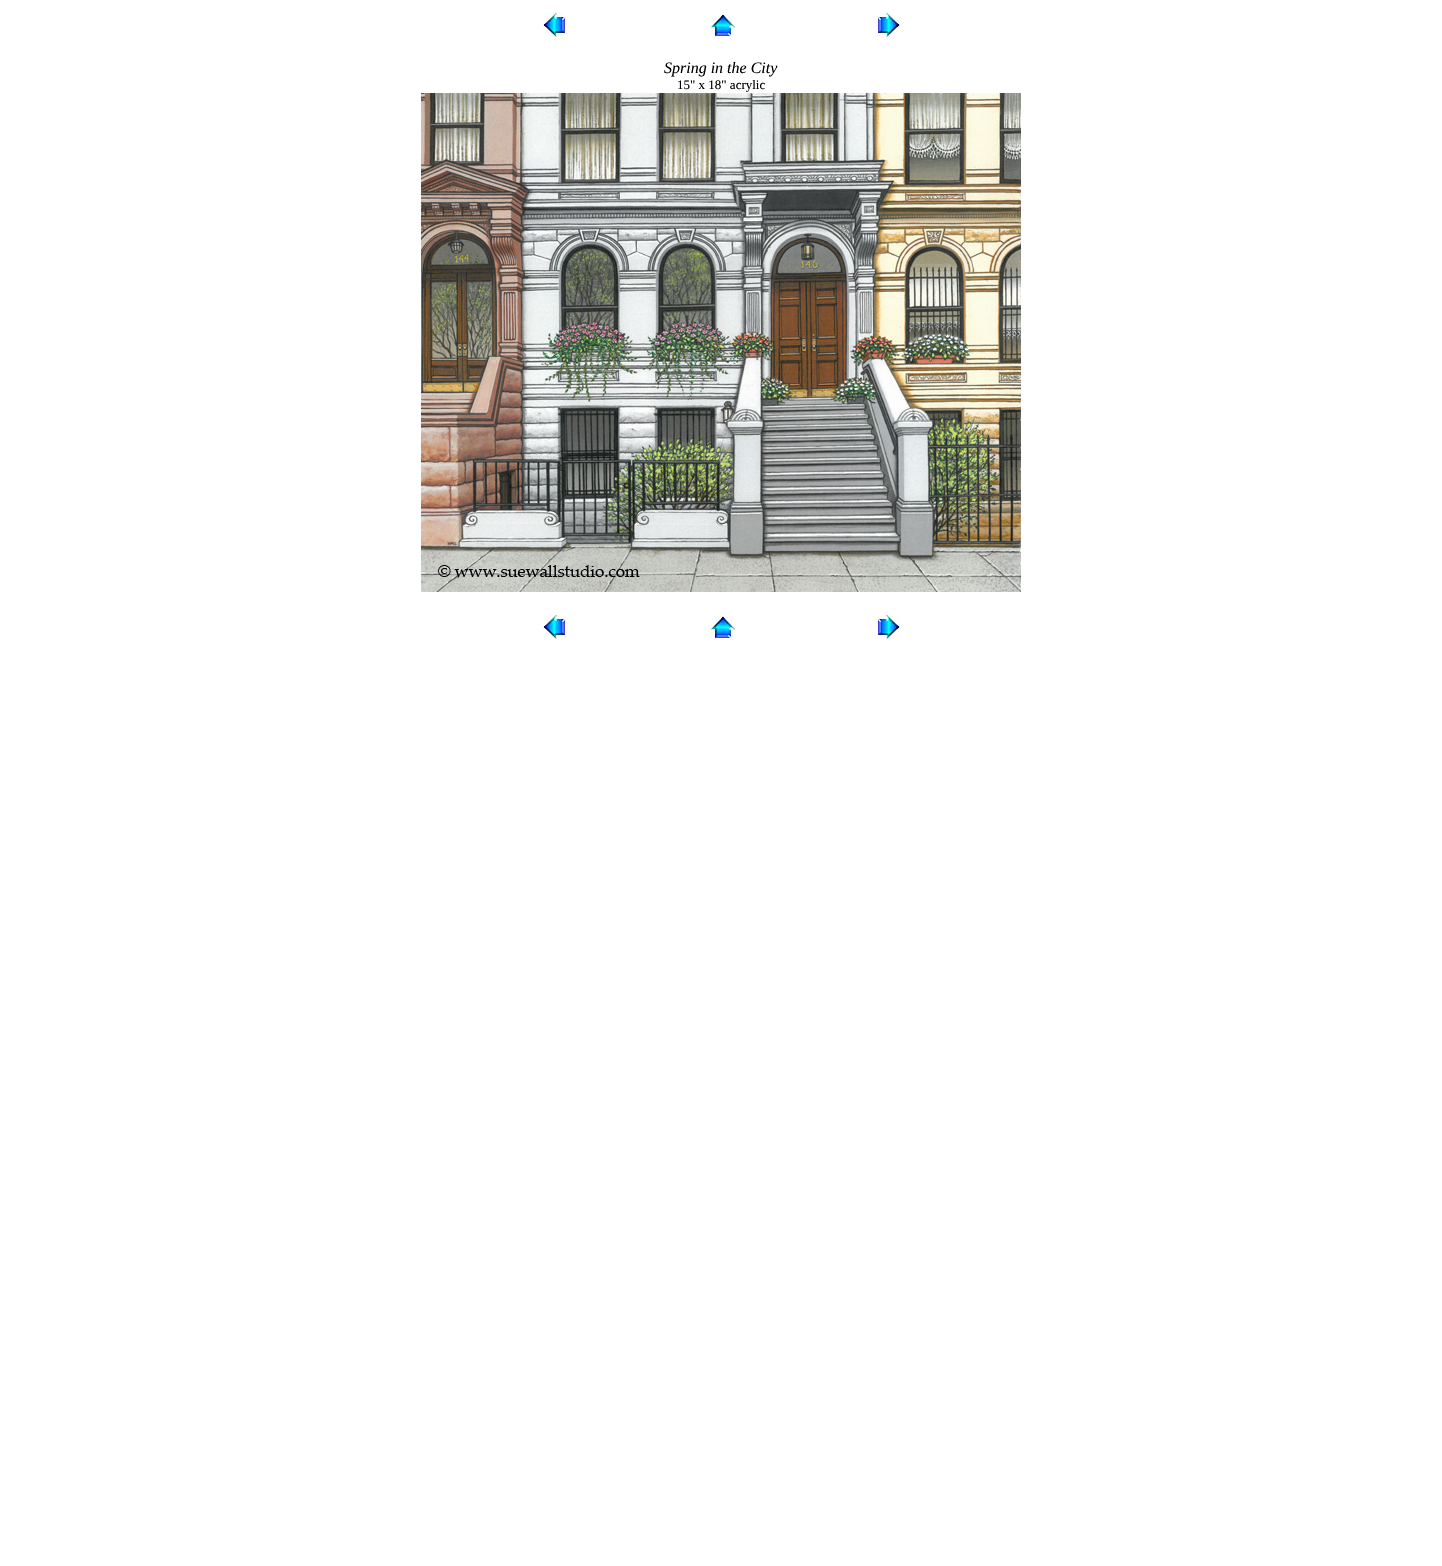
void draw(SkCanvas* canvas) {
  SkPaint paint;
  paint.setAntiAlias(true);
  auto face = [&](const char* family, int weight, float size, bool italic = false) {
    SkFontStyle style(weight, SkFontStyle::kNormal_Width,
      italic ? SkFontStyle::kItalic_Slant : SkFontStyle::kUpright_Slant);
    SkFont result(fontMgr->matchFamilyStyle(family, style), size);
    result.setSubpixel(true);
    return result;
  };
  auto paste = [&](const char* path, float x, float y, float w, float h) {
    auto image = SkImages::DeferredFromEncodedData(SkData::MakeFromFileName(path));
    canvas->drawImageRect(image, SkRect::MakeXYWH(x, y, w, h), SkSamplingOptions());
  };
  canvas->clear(0xffffffff);
  paste("img/1.png", 543, 13, 22, 24);
  paste("img/2.png", 711, 14, 24, 22);
  paste("img/3.png", 878, 13, 22, 24);
  paste("img/4.png", 421, 93, 600, 499);
  paste("img/1.png", 543, 615, 22, 24);
  paste("img/2.png", 711, 616, 24, 22);
  paste("img/3.png", 878, 615, 22, 24);
  auto f0 = face("Liberation Serif", 400, 16, true);
  paint.setColor(0xff000000);
  canvas->drawString("Spring in the City", 664, 73, f0, paint);
  auto f1 = face("Liberation Serif", 400, 13);
  canvas->drawString("15\" x 18\" acrylic", 677, 89, f1, paint);
}
